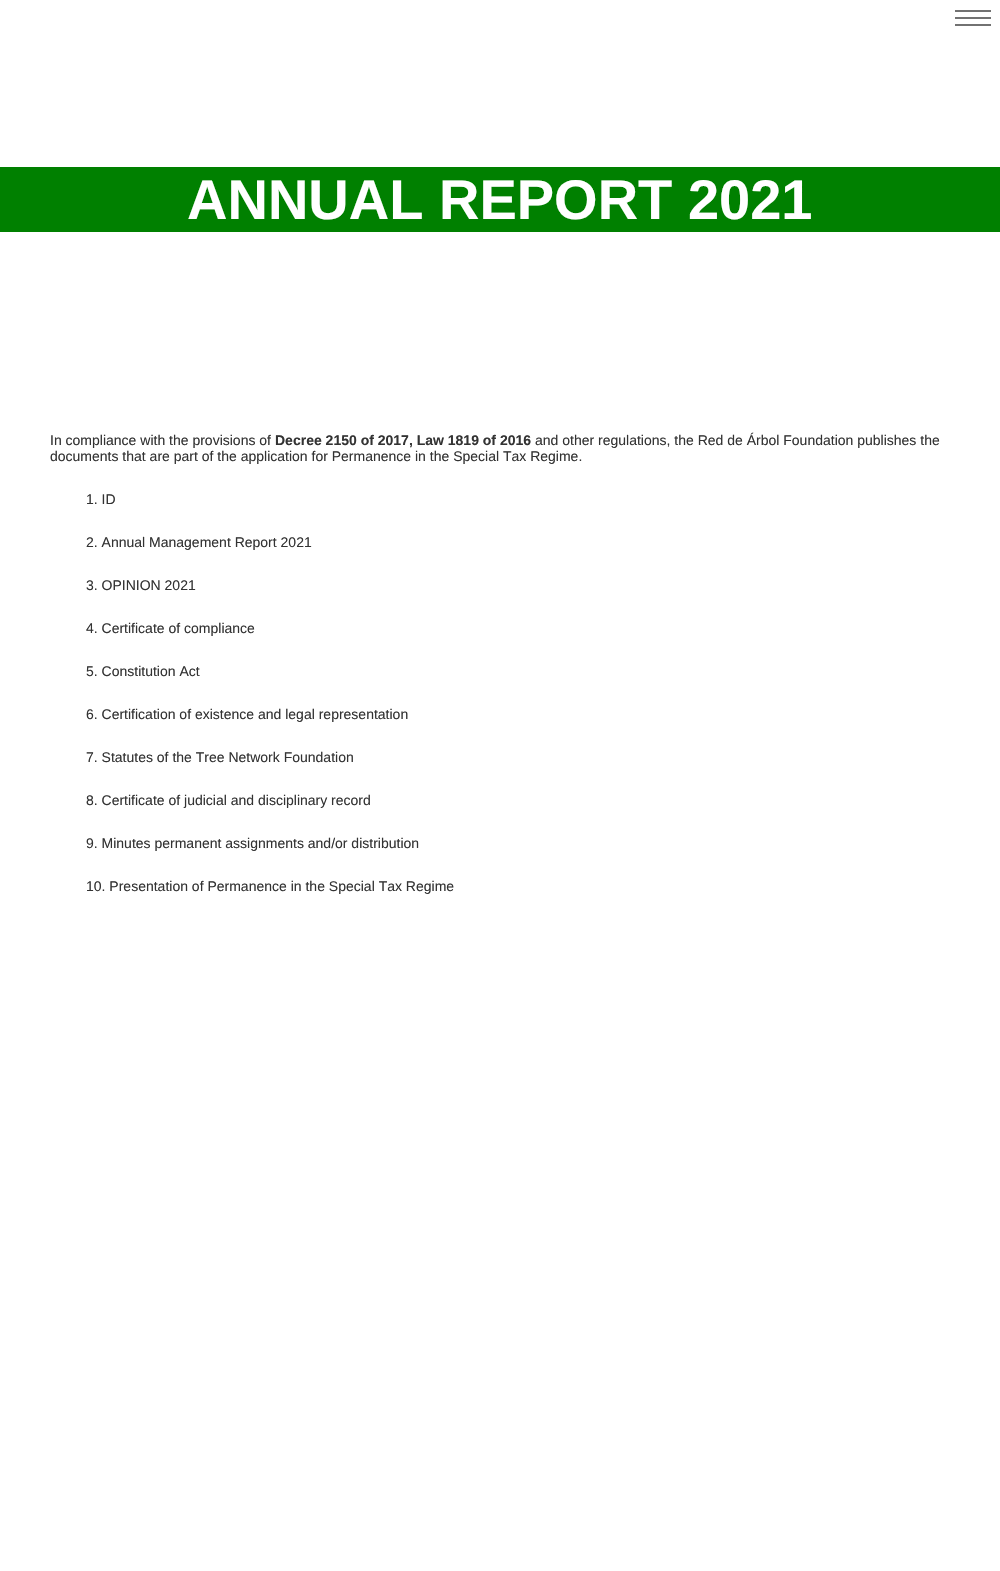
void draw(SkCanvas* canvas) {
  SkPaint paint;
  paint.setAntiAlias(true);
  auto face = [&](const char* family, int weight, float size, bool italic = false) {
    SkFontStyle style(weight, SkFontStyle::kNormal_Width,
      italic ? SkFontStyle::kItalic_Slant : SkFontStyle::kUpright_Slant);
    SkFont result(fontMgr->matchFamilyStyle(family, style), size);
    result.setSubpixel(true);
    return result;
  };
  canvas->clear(0xffffffff);
  {
    const struct { float x, y, w, h; SkColor color; } items[] = {
      {955, 10, 36, 2, 0xff727272},
      {955, 17, 36, 2, 0xff727272},
      {955, 24, 36, 2, 0xff727272},
      {0, 167, 1000, 65, 0xff008000},
    };
    for (auto [x, y, w, h, color] : items) {
      paint.setColor(color);
      canvas->drawRect(SkRect::MakeXYWH(x, y, w, h), paint);
    }
  }
  auto f0 = face("Liberation Sans", 700, 56);
  paint.setColor(0xffffffff);
  canvas->drawString("ANNUAL REPORT 2021", 187, 219, f0, paint);
  auto f1 = face("Liberation Sans", 400, 14);
  paint.setColor(0xff333333);
  canvas->drawString("In compliance with the provisions of", 50, 445, f1, paint);
  auto f2 = face("Liberation Sans", 700, 14);
  canvas->drawString("Decree 2150 of 2017, Law 1819 of 2016", 275, 445, f2, paint);
  {
    const struct { const char* s; float x, y; } items[] = {
      {"and other regulations, the Red de Árbol Foundation publishes the", 535, 445},
      {"documents that are part of the application for Permanence in the Special Tax Regime.", 50, 461},
      {"1. ID", 86, 504},
      {"2. Annual Management Report 2021", 86, 547},
      {"3. OPINION 2021", 86, 590},
      {"4. Certificate of compliance", 86, 633},
      {"5. Constitution Act", 86, 676},
      {"6. Certification of existence and legal representation", 86, 719},
      {"7. Statutes of the Tree Network Foundation", 86, 762},
      {"8. Certificate of judicial and disciplinary record", 86, 805},
      {"9. Minutes permanent assignments and/or distribution", 86, 848},
      {"10. Presentation of Permanence in the Special Tax Regime", 86, 891},
    };
    for (auto [s, x, y] : items) {
      canvas->drawString(s, x, y, f1, paint);
    }
  }
}
